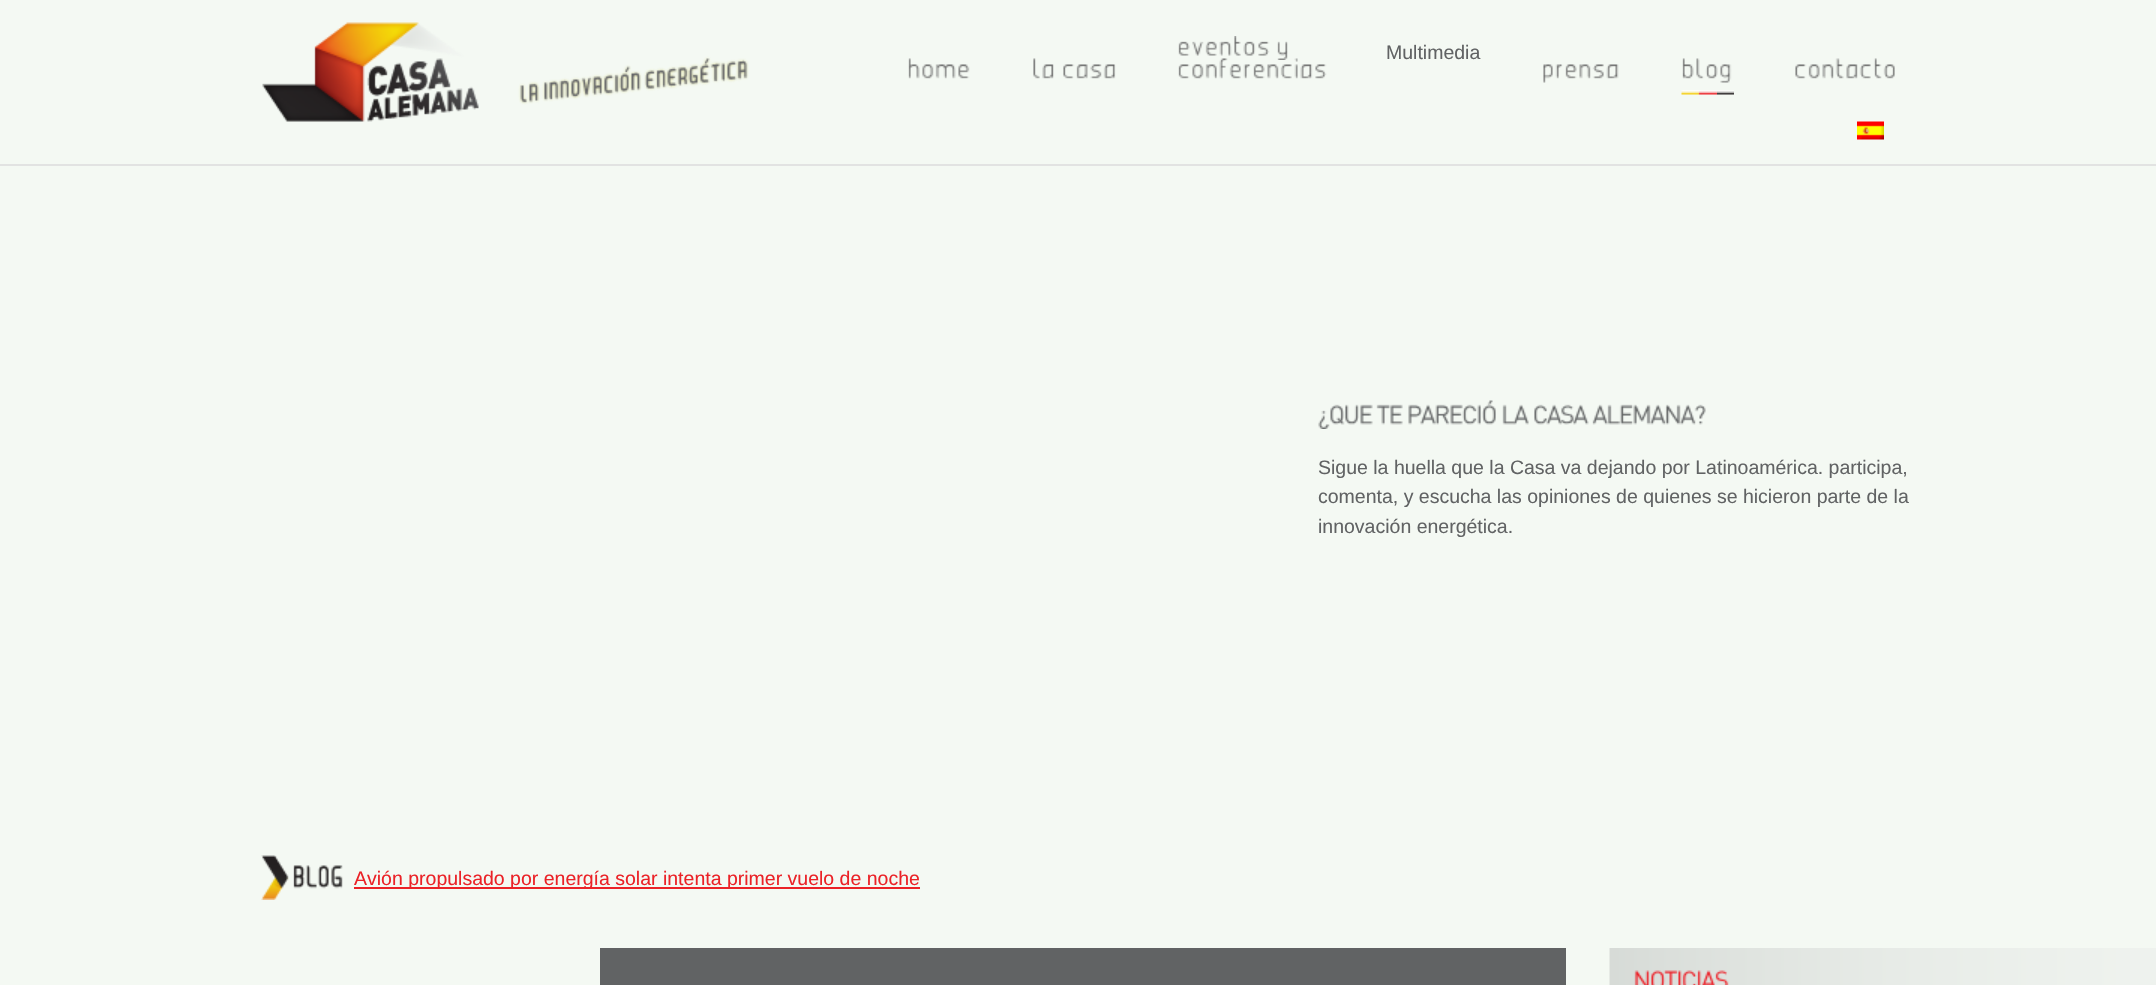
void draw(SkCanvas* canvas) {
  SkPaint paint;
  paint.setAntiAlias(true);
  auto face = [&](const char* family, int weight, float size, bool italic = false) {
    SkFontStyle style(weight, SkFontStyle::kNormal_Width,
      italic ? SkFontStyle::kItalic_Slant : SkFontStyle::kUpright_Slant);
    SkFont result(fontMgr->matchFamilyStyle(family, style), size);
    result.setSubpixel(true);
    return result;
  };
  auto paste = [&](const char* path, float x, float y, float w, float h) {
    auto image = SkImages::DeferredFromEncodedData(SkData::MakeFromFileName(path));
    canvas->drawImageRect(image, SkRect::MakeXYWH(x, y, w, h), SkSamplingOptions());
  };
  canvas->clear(0xfff4f9f3);
  paint.setColor(0xffe2e3e2);
  canvas->drawRect(SkRect::MakeXYWH(0, 164, 2156, 2), paint);
  paste("img/1.png", 262, 22, 487, 100);
  paste("img/2.png", 1178, 36, 92, 20);
  paste("img/3.png", 1277, 41, 11, 19);
  paste("img/4.png", 1178, 58, 149, 21);
  paste("img/5.png", 908, 58, 62, 21);
  paste("img/6.png", 1033, 58, 21, 21);
  paste("img/7.png", 1063, 64, 53, 15);
  paste("img/8.png", 1543, 64, 76, 19);
  paste("img/9.png", 1682, 58, 50, 25);
  paste("img/10.png", 1795, 58, 100, 21);
  paste("img/11.png", 1857, 121, 27, 19);
  paste("img/12.png", 1681, 90, 53, 5);
  paste("img/13.png", 1318, 404, 55, 25);
  paste("img/14.png", 1376, 404, 27, 21);
  paste("img/15.png", 1408, 400, 88, 25);
  paste("img/16.png", 1502, 404, 27, 21);
  paste("img/17.png", 1534, 404, 55, 21);
  paste("img/18.png", 1592, 404, 114, 21);
  paste("img/19.png", 261, 855, 82, 45);
  paint.setColor(0xffeb2227);
  canvas->drawRect(SkRect::MakeXYWH(354, 887, 566, 2), paint);
  paint.setColor(0xff616364);
  canvas->drawRect(SkRect::MakeXYWH(600, 948, 966, 37), paint);
  paste("img/20.png", 1609, 948, 547, 37);
  paste("img/21.png", 1634, 970, 95, 15);
  auto f0 = face("Liberation Sans", 400, 19.5f);
  {
    const struct { const char* s; float x, y; } items[] = {
      {"Multimedia", 1386, 59},
      {"Sigue la huella que la Casa va dejando por Latinoamérica. participa,", 1318, 474},
      {"comenta, y escucha las opiniones de quienes se hicieron parte de la", 1318, 503},
      {"innovación energética.", 1318, 533},
    };
    for (auto [s, x, y] : items) {
      canvas->drawString(s, x, y, f0, paint);
    }
  }
  paint.setColor(0xffeb2227);
  canvas->drawString("Avión propulsado por energía solar intenta primer vuelo de noche", 354, 885, f0, paint);
}
